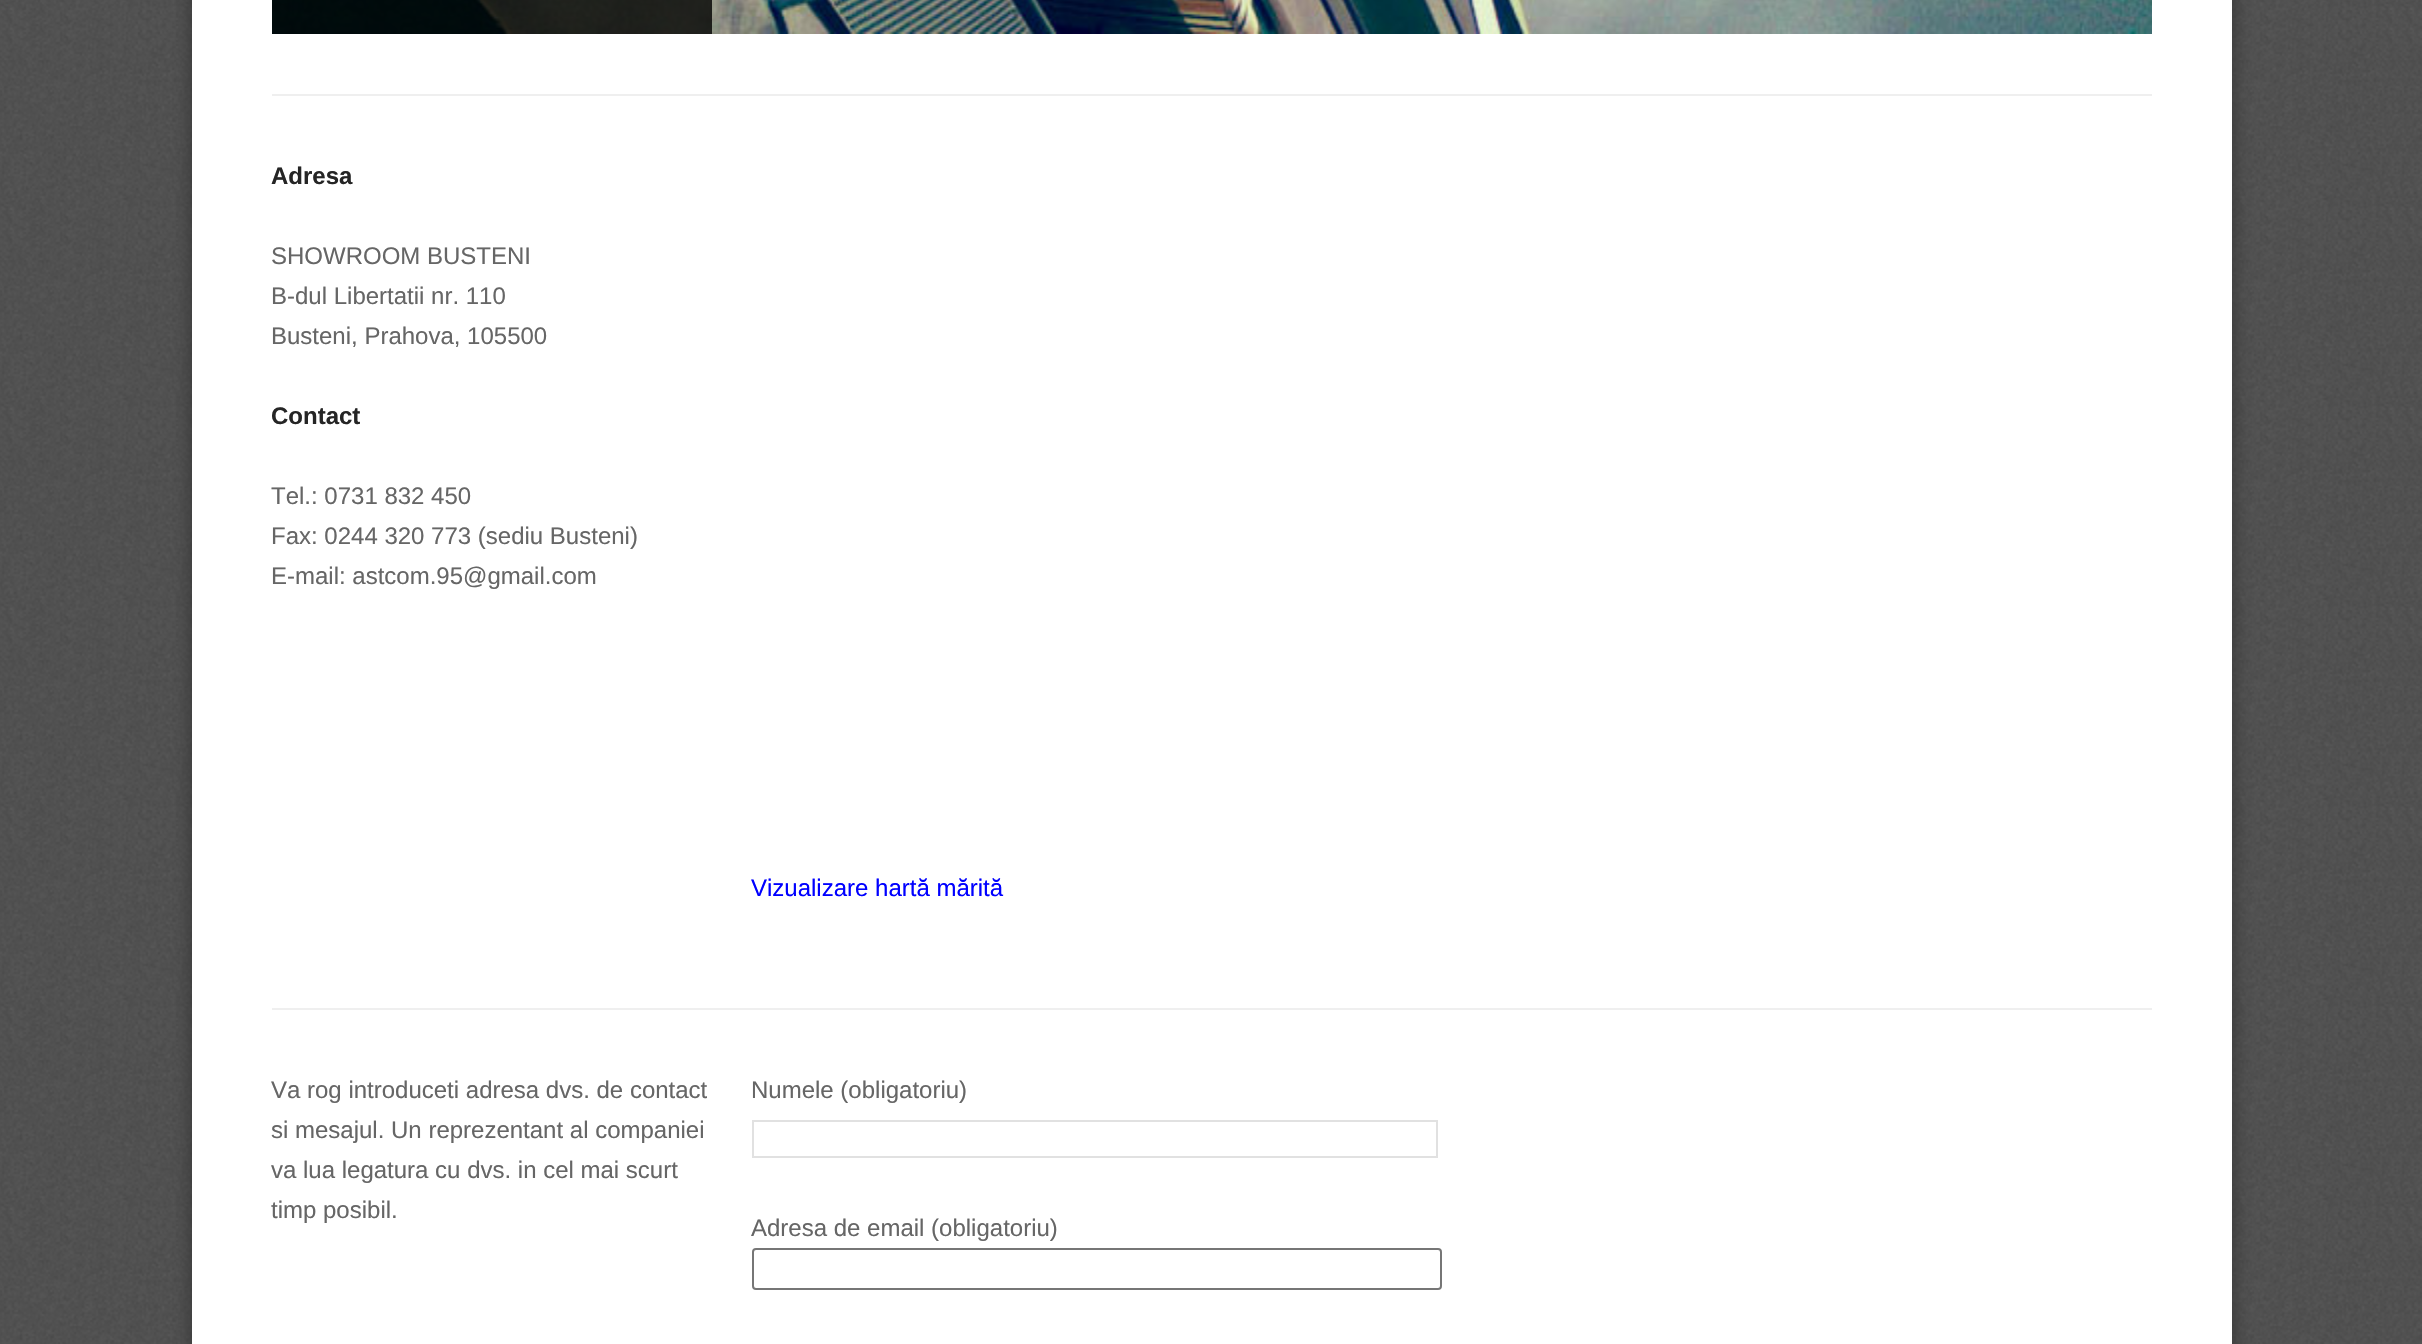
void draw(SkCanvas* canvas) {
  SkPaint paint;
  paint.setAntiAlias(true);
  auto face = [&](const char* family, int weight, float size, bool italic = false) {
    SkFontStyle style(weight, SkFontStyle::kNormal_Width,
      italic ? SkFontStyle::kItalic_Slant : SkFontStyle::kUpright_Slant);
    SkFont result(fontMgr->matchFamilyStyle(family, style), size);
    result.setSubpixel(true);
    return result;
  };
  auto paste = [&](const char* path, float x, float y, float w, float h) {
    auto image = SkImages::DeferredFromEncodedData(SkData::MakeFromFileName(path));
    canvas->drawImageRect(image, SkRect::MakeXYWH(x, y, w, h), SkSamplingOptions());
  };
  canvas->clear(0xffffffff);
  paste("img/1.png", 0, 0, 2422, 1344);
  paint.setColor(0xff333333);
  paint.setMaskFilter(SkMaskFilter::MakeBlur(kNormal_SkBlurStyle, 10));
  canvas->drawRect(SkRect::MakeXYWH(192, -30, 2040, 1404), paint);
  paint.setMaskFilter(nullptr);
  paint.setColor(0xffffffff);
  canvas->drawRect(SkRect::MakeXYWH(192, 0, 2040, 1344), paint);
  paste("img/2.png", 272, 0, 1880, 34);
  {
    const struct { float x, y, w, h; SkColor color; } items[] = {
      {272, 0, 440, 34, 0xcc000000},
      {272, 94, 1880, 2, 0xffefefef},
      {272, 1008, 1880, 2, 0xffefefef},
    };
    for (auto [x, y, w, h, color] : items) {
      paint.setColor(color);
      canvas->drawRect(SkRect::MakeXYWH(x, y, w, h), paint);
    }
  }
  paint.setStroke(true);
  paint.setStrokeWidth(2);
  paint.setColor(0xffe1e1e1);
  canvas->drawRect(SkRect::MakeXYWH(753, 1121, 684, 36), paint);
  paint.setColor(0xff767676);
  canvas->drawRoundRect(SkRect::MakeXYWH(753, 1249, 688, 40), 3, 3, paint);
  auto f0 = face("Liberation Sans", 700, 24);
  paint.setStroke(false);
  paint.setColor(0xff252525);
  canvas->drawString("Adresa", 271, 184, f0, paint);
  auto f1 = face("Liberation Sans", 400, 24);
  paint.setColor(0xff666666);
  {
    const struct { const char* s; float x, y; } items[] = {
      {"SHOWROOM BUSTENI", 271, 264},
      {"B-dul Libertatii nr. 110", 271, 304},
      {"Busteni, Prahova, 105500", 271, 344},
    };
    for (auto [s, x, y] : items) {
      canvas->drawString(s, x, y, f1, paint);
    }
  }
  paint.setColor(0xff252525);
  canvas->drawString("Contact", 271, 424, f0, paint);
  paint.setColor(0xff666666);
  {
    const struct { const char* s; float x, y; } items[] = {
      {"Tel.: 0731 832 450", 271, 504},
      {"Fax: 0244 320 773 (sediu Busteni)", 271, 544},
      {"E-mail: astcom.95@gmail.com", 271, 584},
    };
    for (auto [s, x, y] : items) {
      canvas->drawString(s, x, y, f1, paint);
    }
  }
  paint.setColor(0xff0000ff);
  canvas->drawString("Vizualizare hartă mărită", 751, 896, f1, paint);
  paint.setColor(0xff666666);
  {
    const struct { const char* s; float x, y; } items[] = {
      {"Va rog introduceti adresa dvs. de contact", 271, 1098},
      {"si mesajul. Un reprezentant al companiei", 271, 1138},
      {"va lua legatura cu dvs. in cel mai scurt", 271, 1178},
      {"timp posibil.", 271, 1218},
      {"Numele (obligatoriu)", 751, 1098},
      {"Adresa de email (obligatoriu)", 751, 1236},
    };
    for (auto [s, x, y] : items) {
      canvas->drawString(s, x, y, f1, paint);
    }
  }
}
